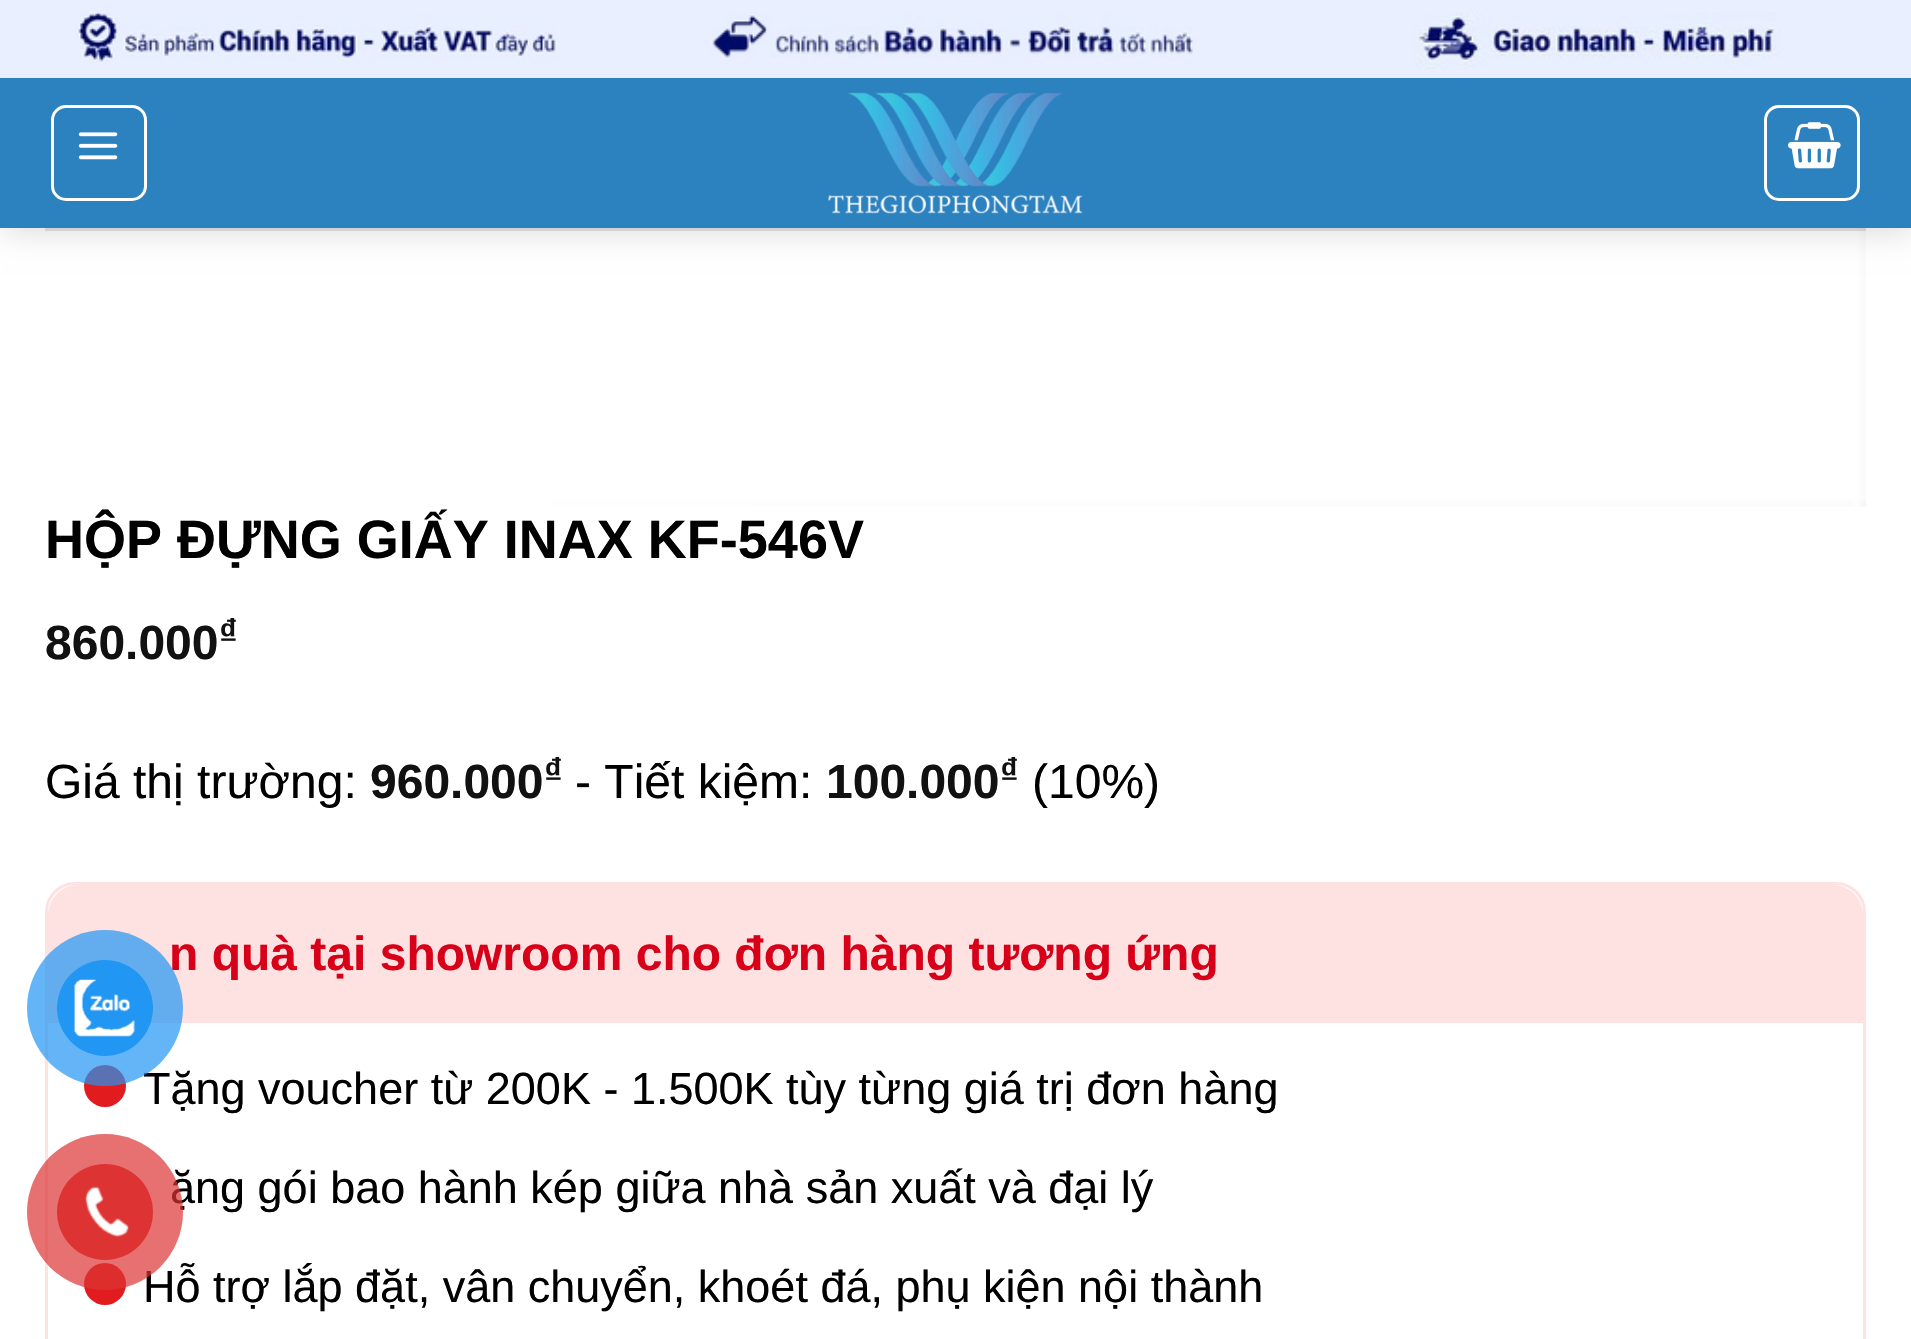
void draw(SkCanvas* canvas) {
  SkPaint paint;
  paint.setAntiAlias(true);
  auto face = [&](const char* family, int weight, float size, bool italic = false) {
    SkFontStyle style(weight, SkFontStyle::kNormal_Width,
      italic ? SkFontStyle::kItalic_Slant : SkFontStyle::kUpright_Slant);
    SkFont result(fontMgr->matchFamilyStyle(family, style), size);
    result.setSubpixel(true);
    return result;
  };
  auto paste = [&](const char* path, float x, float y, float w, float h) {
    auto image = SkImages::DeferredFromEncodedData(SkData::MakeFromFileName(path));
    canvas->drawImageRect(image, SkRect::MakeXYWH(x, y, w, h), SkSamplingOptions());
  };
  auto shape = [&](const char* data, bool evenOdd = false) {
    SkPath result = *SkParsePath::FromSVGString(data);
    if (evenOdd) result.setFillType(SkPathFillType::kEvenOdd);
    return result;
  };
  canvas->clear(0xffffffff);
  paste("img/7.png", 552, 228, 1314, 279);
  paint.setColor(0x26000000);
  paint.setMaskFilter(SkMaskFilter::MakeBlur(kNormal_SkBlurStyle, 15));
  canvas->drawRect(SkRect::MakeXYWH(3, 3, 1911, 228), paint);
  paint.setMaskFilter(nullptr);
  paint.setColor(0xffe9efff);
  canvas->drawRect(SkRect::MakeXYWH(0, 0, 1911, 78), paint);
  paste("img/1.png", 75, 12, 482, 51);
  paste("img/2.png", 711, 12, 482, 46);
  paste("img/3.png", 1412, 12, 370, 57);
  paint.setColor(0xff2c81bf);
  canvas->drawRect(SkRect::MakeXYWH(0, 78, 1911, 150), paint);
  paint.setStroke(true);
  paint.setStrokeWidth(3);
  paint.setColor(0xffffffff);
  canvas->drawRoundRect(SkRect::MakeXYWH(52.5f, 106.5f, 93, 93), 13.5f, 13.5f, paint);
  paste("img/4.png", 78, 132, 40, 28);
  paste("img/5.png", 828, 92, 255, 122);
  canvas->drawRoundRect(SkRect::MakeXYWH(1765.5f, 106.5f, 93, 93), 13.5f, 13.5f, paint);
  paste("img/6.png", 1788, 122, 53, 47);
  paint.setStroke(false);
  paint.setColor(0x1a000000);
  canvas->drawRect(SkRect::MakeXYWH(45, 228, 1821, 3), paint);
  paint.setStroke(true);
  paint.setColor(0xfffee2e2);
  canvas->drawRoundRect(SkRect::MakeXYWH(46.5f, 883.5f, 1818, 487), 28.5f, 28.5f, paint);
  canvas->save();
  canvas->clipPath(shape("M75 885H1836C1851 885 1863 897 1863 912V1452C1863 1467 1851 1479 1836 1479H75C60 1479 48 1467 48 1452V912C48 897 60 885 75 885Z"), true);
  paint.setStroke(false);
  canvas->drawPath(shape("M78 885H1833C1849.5 885 1863 898.5 1863 915V1023H48V915C48 898.5 61.5 885 78 885Z"), paint);
  canvas->restore();
  paint.setColor(0xffe11b1e);
  canvas->drawCircle(105, 1086, 21, paint);
  canvas->drawCircle(105, 1284, 21, paint);
  auto f0 = face("Liberation Sans", 700, 54);
  paint.setColor(0xff000000);
  canvas->drawString("HỘP ĐỰNG GIẤY INAX KF-546V", 45, 558, f0, paint);
  auto f1 = face("Liberation Sans", 700, 48);
  paint.setColor(0xff111111);
  canvas->drawString("860.000", 45, 659, f1, paint);
  auto f2 = face("Liberation Sans", 700, 36);
  canvas->drawString("₫", 219, 644, f2, paint);
  auto f3 = face("Liberation Sans", 400, 48);
  paint.setColor(0xff000000);
  canvas->drawString("Giá thị trường:", 45, 798, f3, paint);
  paint.setColor(0xff111111);
  canvas->drawString("960.000", 370, 798, f1, paint);
  canvas->drawString("₫", 544, 783, f2, paint);
  paint.setColor(0xff000000);
  canvas->drawString("- Tiết kiệm:", 575, 798, f3, paint);
  paint.setColor(0xff111111);
  canvas->drawString("100.000", 826, 798, f1, paint);
  canvas->drawString("₫", 1000, 783, f2, paint);
  paint.setColor(0xff000000);
  canvas->drawString("(10%)", 1032, 798, f3, paint);
  paint.setColor(0xffd70018);
  canvas->drawString("n quà tại showroom cho đơn hàng tương ứng", 169, 970, f1, paint);
  auto f4 = face("Liberation Sans", 400, 45);
  paint.setColor(0xff000000);
  {
    const struct { const char* s; float x, y; } items[] = {
      {"Tặng voucher từ 200K - 1.500K tùy từng giá trị đơn hàng", 143, 1104},
      {"ặng gói bao hành kép giữa nhà sản xuất và đại lý", 170, 1203},
      {"Hỗ trợ lắp đặt, vân chuyển, khoét đá, phụ kiện nội thành", 143, 1302},
    };
    for (auto [s, x, y] : items) {
      canvas->drawString(s, x, y, f4, paint);
    }
  }
  paint.setColor(0xb32196f3);
  canvas->drawCircle(105, 1008, 78, paint);
  paint.setColor(0xff2196f3);
  canvas->drawCircle(105, 1008, 48, paint);
  paste("img/8.png", 74, 979, 61, 58);
  paint.setColor(0xb3dd3333);
  canvas->drawCircle(105, 1212, 78, paint);
  paint.setColor(0xffdd3333);
  canvas->drawCircle(105, 1212, 48, paint);
  paste("img/9.png", 85, 1186, 44, 51);
}
